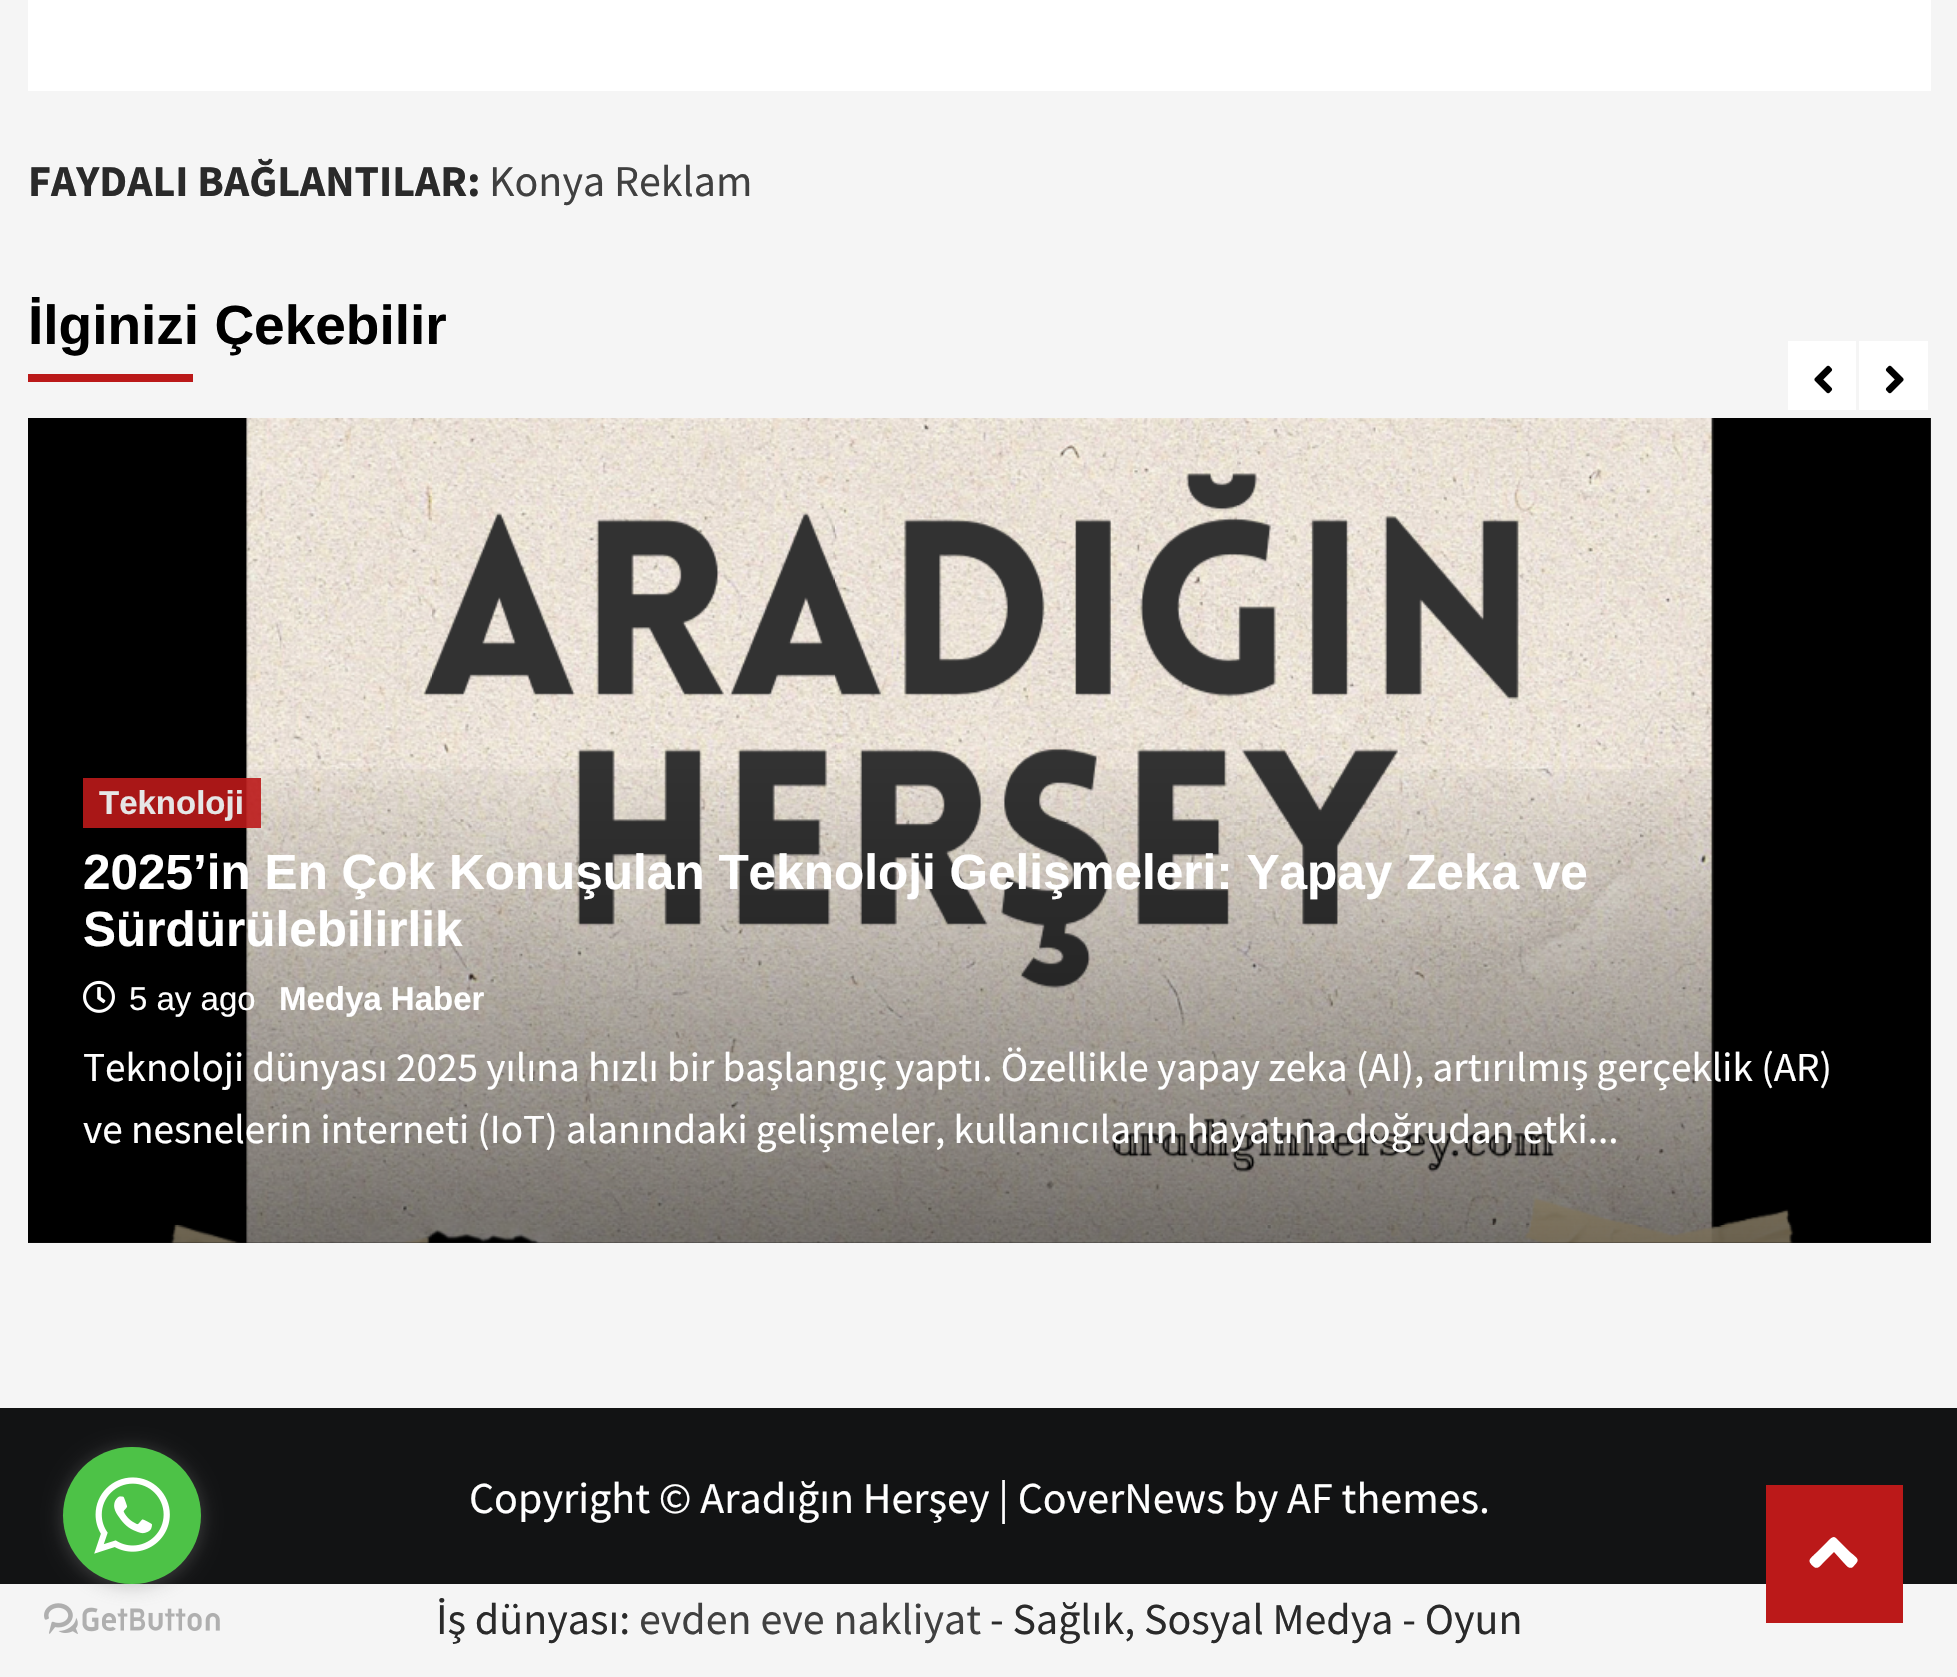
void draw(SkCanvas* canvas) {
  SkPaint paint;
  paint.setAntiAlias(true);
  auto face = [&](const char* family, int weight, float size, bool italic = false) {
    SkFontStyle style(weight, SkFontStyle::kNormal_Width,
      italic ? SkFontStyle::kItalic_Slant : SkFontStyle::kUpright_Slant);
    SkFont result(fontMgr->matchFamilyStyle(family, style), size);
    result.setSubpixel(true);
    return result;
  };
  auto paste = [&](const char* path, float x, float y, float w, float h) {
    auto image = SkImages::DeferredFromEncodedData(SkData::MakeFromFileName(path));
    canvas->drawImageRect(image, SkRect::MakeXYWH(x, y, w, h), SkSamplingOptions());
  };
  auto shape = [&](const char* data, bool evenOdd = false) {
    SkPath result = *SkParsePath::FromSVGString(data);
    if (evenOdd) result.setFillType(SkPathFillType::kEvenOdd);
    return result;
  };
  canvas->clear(0xfff5f5f5);
  {
    const struct { float x, y, w, h; SkColor color; } items[] = {
      {28, 0, 1903, 91, 0xffffffff},
      {28, 374, 165, 8, 0xffbb1919},
      {1788, 341, 68, 69, 0xffffffff},
    };
    for (auto [x, y, w, h, color] : items) {
      paint.setColor(color);
      canvas->drawRect(SkRect::MakeXYWH(x, y, w, h), paint);
    }
  }
  paste("img/1.png", 1814, 365, 19, 29);
  canvas->drawRect(SkRect::MakeXYWH(1859, 341, 69, 69), paint);
  paste("img/2.png", 1885, 365, 19, 29);
  paint.setColor(0xff333333);
  canvas->drawRect(SkRect::MakeXYWH(28, 418, 1903, 825), paint);
  paste("img/3.png", 28, 418, 1903, 825);
  {
    const SkColor colors[] = {0x00000000, 0x85000000};
    const float stops[] = {0.4f, 1};
    const SkPoint ends[] = {{979, 418}, {979, 1243}};
    paint.setShader(SkGradientShader::MakeLinear(ends, colors, stops, 2, SkTileMode::kClamp));
    paint.setAlpha(255);
  }
  canvas->drawRect(SkRect::MakeXYWH(28, 769, 1903, 474), paint);
  paint.setShader(nullptr);
  paint.setColor(0xe6bb1919);
  canvas->drawRect(SkRect::MakeXYWH(83, 778, 178, 50), paint);
  paste("img/4.png", 83, 980, 32, 33);
  paint.setColor(0xff121314);
  canvas->drawRect(SkRect::MakeXYWH(0, 1408, 1957, 176), paint);
  paste("img/6.png", 44, 1603, 176, 31);
  paint.setColor(0x66888888);
  paint.setMaskFilter(SkMaskFilter::MakeBlur(kNormal_SkBlurStyle, 9.5f));
  canvas->drawRoundRect(SkRect::MakeXYWH(63, 1449, 138, 138), 69, 69, paint);
  paint.setMaskFilter(nullptr);
  paint.setColor(0xff4dc247);
  canvas->drawRoundRect(SkRect::MakeXYWH(63, 1447, 138, 137), 68.5f, 68.5f, paint);
  paste("img/5.png", 94, 1477, 76, 77);
  paint.setColor(0xffbb1919);
  canvas->drawRect(SkRect::MakeXYWH(1766, 1485, 137, 138), paint);
  paint.setColor(0xffffffff);
  canvas->drawPath(shape("M1836 1538L1850 1552C1858 1559 1861 1559 1853 1567C1849 1570 1845 1564 1843 1562L1834 1552L1824 1562C1822 1564 1818 1570 1814 1567C1806 1560 1810 1559 1817 1552L1828 1541C1830 1539 1833 1535 1836 1538Z"), paint);
  auto f0 = face("Source Sans Pro", 700, 44);
  paint.setColor(0xff2a2a2a);
  canvas->drawString("FAYDALI BAĞLANTILAR:", 28, 196, f0, paint);
  auto f1 = face("Source Sans Pro", 400, 44);
  paint.setColor(0xff404040);
  canvas->drawString("Konya Reklam", 489, 196, f1, paint);
  auto f2 = face("Liberation Sans", 700, 55);
  paint.setColor(0xff000000);
  canvas->drawString("İlginizi Çekebilir", 28, 344, f2, paint);
  auto f3 = face("Liberation Sans", 700, 33);
  paint.setColor(0xffe6e6e6);
  canvas->drawString("Teknoloji", 99, 814, f3, paint);
  auto f4 = face("Liberation Sans", 700, 49.5f);
  paint.setColor(0xffffffff);
  canvas->drawString("2025’in En Çok Konuşulan Teknoloji Gelişmeleri: Yapay Zeka ve", 83, 889, f4, paint);
  canvas->drawString("Sürdürülebilirlik", 83, 946, f4, paint);
  auto f5 = face("Liberation Sans", 400, 33);
  canvas->drawString("5 ay ago", 129, 1010, f5, paint);
  canvas->drawString("Medya Haber", 279, 1010, f3, paint);
  auto f6 = face("Source Sans Pro", 400, 41.25f);
  canvas->drawString("Teknoloji dünyası 2025 yılına hızlı bir başlangıç yaptı. Özellikle yapay zeka (AI), artırılmış gerçeklik (AR)", 83, 1081, f6, paint);
  canvas->drawString("ve nesnelerin interneti (IoT) alanındaki gelişmeler, kullanıcıların hayatına doğrudan etki...", 83, 1143, f6, paint);
  canvas->drawString("Copyright © Aradığın Herşey | CoverNews by AF themes.", 469, 1513, f1, paint);
  paint.setColor(0xff2a2a2a);
  canvas->drawString("İş dünyası:", 436, 1634, f1, paint);
  paint.setColor(0xff404040);
  canvas->drawString("evden eve nakliyat", 639, 1634, f1, paint);
  paint.setColor(0xff2a2a2a);
  canvas->drawString("- Sağlık, Sosyal Medya - Oyun", 990, 1634, f1, paint);
}
